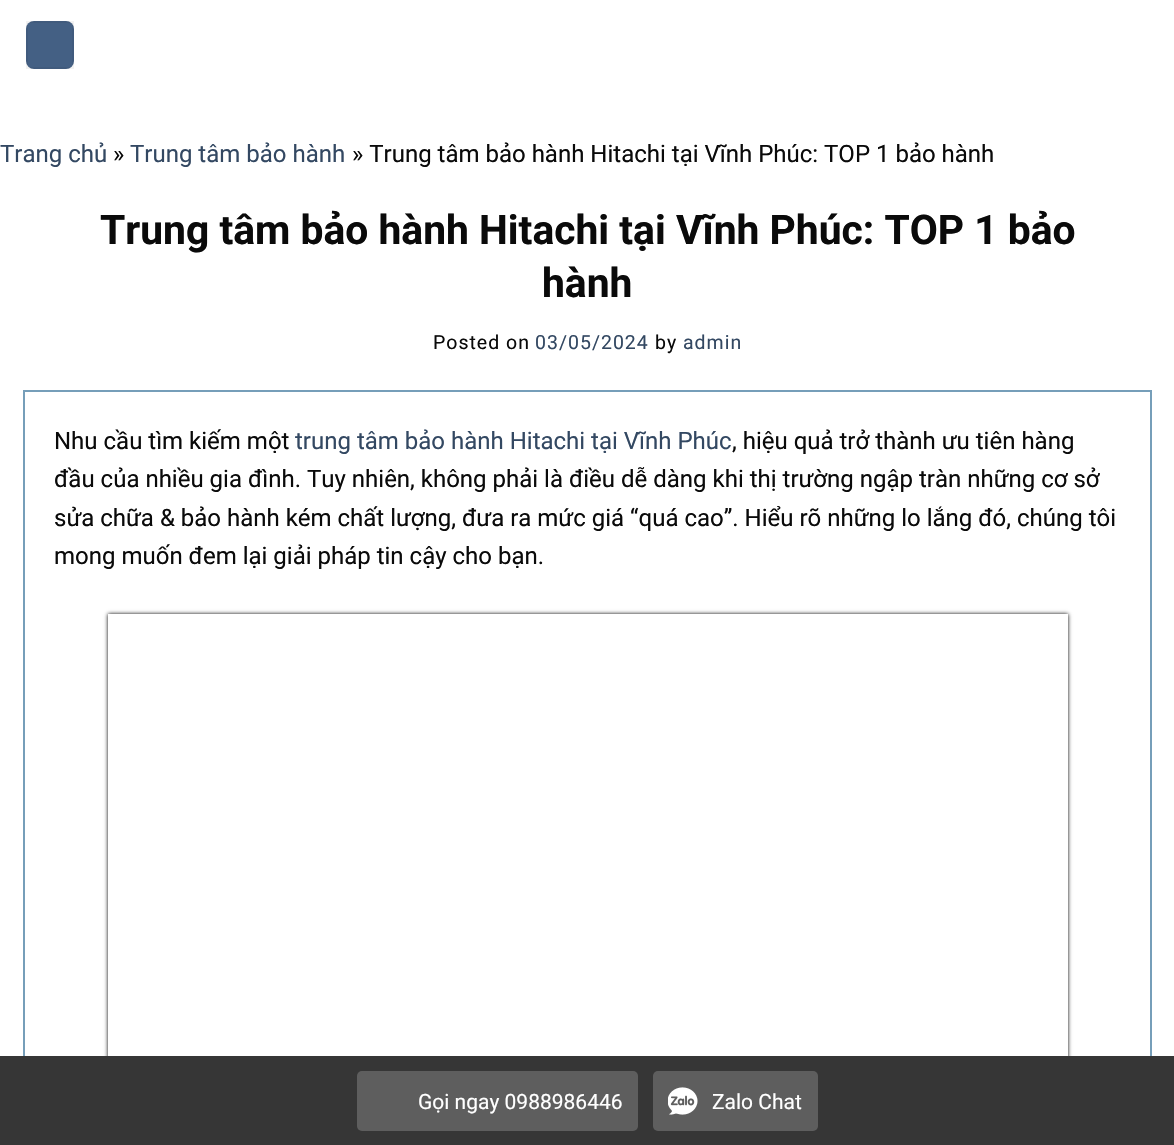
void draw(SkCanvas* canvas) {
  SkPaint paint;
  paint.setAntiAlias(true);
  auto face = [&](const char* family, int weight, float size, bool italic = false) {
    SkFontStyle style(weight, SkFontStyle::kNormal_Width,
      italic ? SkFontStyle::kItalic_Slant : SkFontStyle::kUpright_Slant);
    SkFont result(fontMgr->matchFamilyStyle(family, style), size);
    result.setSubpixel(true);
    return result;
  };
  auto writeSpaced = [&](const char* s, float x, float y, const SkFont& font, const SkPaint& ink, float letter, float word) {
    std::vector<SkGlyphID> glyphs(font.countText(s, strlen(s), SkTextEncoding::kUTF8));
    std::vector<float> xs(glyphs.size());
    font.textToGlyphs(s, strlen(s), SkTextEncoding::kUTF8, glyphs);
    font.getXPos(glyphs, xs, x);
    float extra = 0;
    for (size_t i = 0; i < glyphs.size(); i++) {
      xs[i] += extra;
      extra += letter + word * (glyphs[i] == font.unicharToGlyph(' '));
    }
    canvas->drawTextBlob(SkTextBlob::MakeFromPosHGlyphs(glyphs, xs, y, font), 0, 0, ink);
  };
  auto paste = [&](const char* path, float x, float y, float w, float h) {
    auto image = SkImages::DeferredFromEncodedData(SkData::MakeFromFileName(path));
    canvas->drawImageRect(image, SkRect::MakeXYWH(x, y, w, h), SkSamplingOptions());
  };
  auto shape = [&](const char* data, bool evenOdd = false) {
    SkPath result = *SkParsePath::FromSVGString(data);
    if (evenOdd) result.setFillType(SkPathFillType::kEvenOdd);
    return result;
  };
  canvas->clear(0xffffffff);
  paint.setColor(0xff446084);
  canvas->drawRoundRect(SkRect::MakeXYWH(26, 21, 48, 48), 8, 8, paint);
  paint.setStroke(true);
  paint.setStrokeWidth(2);
  paint.setColor(0x0d000000);
  canvas->drawRect(SkRect::MakeXYWH(27, 22, 46, 46), paint);
  paint.setColor(0xff769eb9);
  canvas->drawRect(SkRect::MakeXYWH(24, 391, 1127, 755), paint);
  canvas->save();
  canvas->clipPath(shape("M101 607H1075V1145H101ZM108 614H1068V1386H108Z", true), true);
  paint.setStroke(false);
  paint.setColor(0xff000000);
  paint.setMaskFilter(SkMaskFilter::MakeBlur(kNormal_SkBlurStyle, 2));
  canvas->drawRect(SkRect::MakeXYWH(108, 614, 960, 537), paint);
  paint.setMaskFilter(nullptr);
  canvas->restore();
  paint.setColor(0xff363636);
  canvas->drawRect(SkRect::MakeXYWH(0, 1056, 1174, 89), paint);
  paint.setColor(0xff5e5e5e);
  canvas->drawRoundRect(SkRect::MakeXYWH(357, 1071, 281, 60), 5, 5, paint);
  canvas->drawRoundRect(SkRect::MakeXYWH(653, 1071, 165, 60), 5, 5, paint);
  paste("img/1.png", 668, 1087, 30, 28);
  auto f0 = face("Roboto", 400, 24);
  paint.setColor(0xff334862);
  canvas->drawString("Trang chủ", 0, 162, f0, paint);
  paint.setColor(0xff0a0a0a);
  canvas->drawString("»", 113, 162, f0, paint);
  paint.setColor(0xff334862);
  canvas->drawString("Trung tâm bảo hành", 130, 162, f0, paint);
  paint.setColor(0xff0a0a0a);
  canvas->drawString("» Trung tâm bảo hành Hitachi tại Vĩnh Phúc: TOP 1 bảo hành", 352, 162, f0, paint);
  auto f1 = face("Roboto", 700, 40.8f);
  canvas->drawString("Trung tâm bảo hành Hitachi tại Vĩnh Phúc: TOP 1 bảo", 100, 244, f1, paint);
  canvas->drawString("hành", 542, 297, f1, paint);
  auto f2 = face("Roboto", 400, 19.5f);
  writeSpaced("Posted on", 433, 349, f2, paint, 1, 0);
  paint.setColor(0xff334862);
  writeSpaced("03/05/2024", 535, 349, f2, paint, 1, 0);
  paint.setColor(0xff0a0a0a);
  writeSpaced("by", 655, 349, f2, paint, 1, 0);
  paint.setColor(0xff334862);
  writeSpaced("admin", 683, 349, f2, paint, 1, 0);
  paint.setColor(0xff0a0a0a);
  canvas->drawString("Nhu cầu tìm kiếm một", 54, 449, f0, paint);
  paint.setColor(0xff334862);
  canvas->drawString("trung tâm bảo hành Hitachi tại Vĩnh Phúc", 295, 449, f0, paint);
  paint.setColor(0xff0a0a0a);
  {
    const struct { const char* s; float x, y; } items[] = {
      {", hiệu quả trở thành ưu tiên hàng", 732, 449},
      {"đầu của nhiều gia đình. Tuy nhiên, không phải là điều dễ dàng khi thị trường ngập tràn những cơ sở", 54, 487},
      {"sửa chữa & bảo hành kém chất lượng, đưa ra mức giá “quá cao”. Hiểu rõ những lo lắng đó, chúng tôi", 54, 526},
      {"mong muốn đem lại giải pháp tin cậy cho bạn.", 54, 564},
    };
    for (auto [s, x, y] : items) {
      canvas->drawString(s, x, y, f0, paint);
    }
  }
  auto f3 = face("Roboto", 400, 21);
  paint.setColor(0xffffffff);
  canvas->drawString("Gọi ngay 0988986446", 418, 1109, f3, paint);
  canvas->drawString("Zalo Chat", 712, 1109, f3, paint);
}
